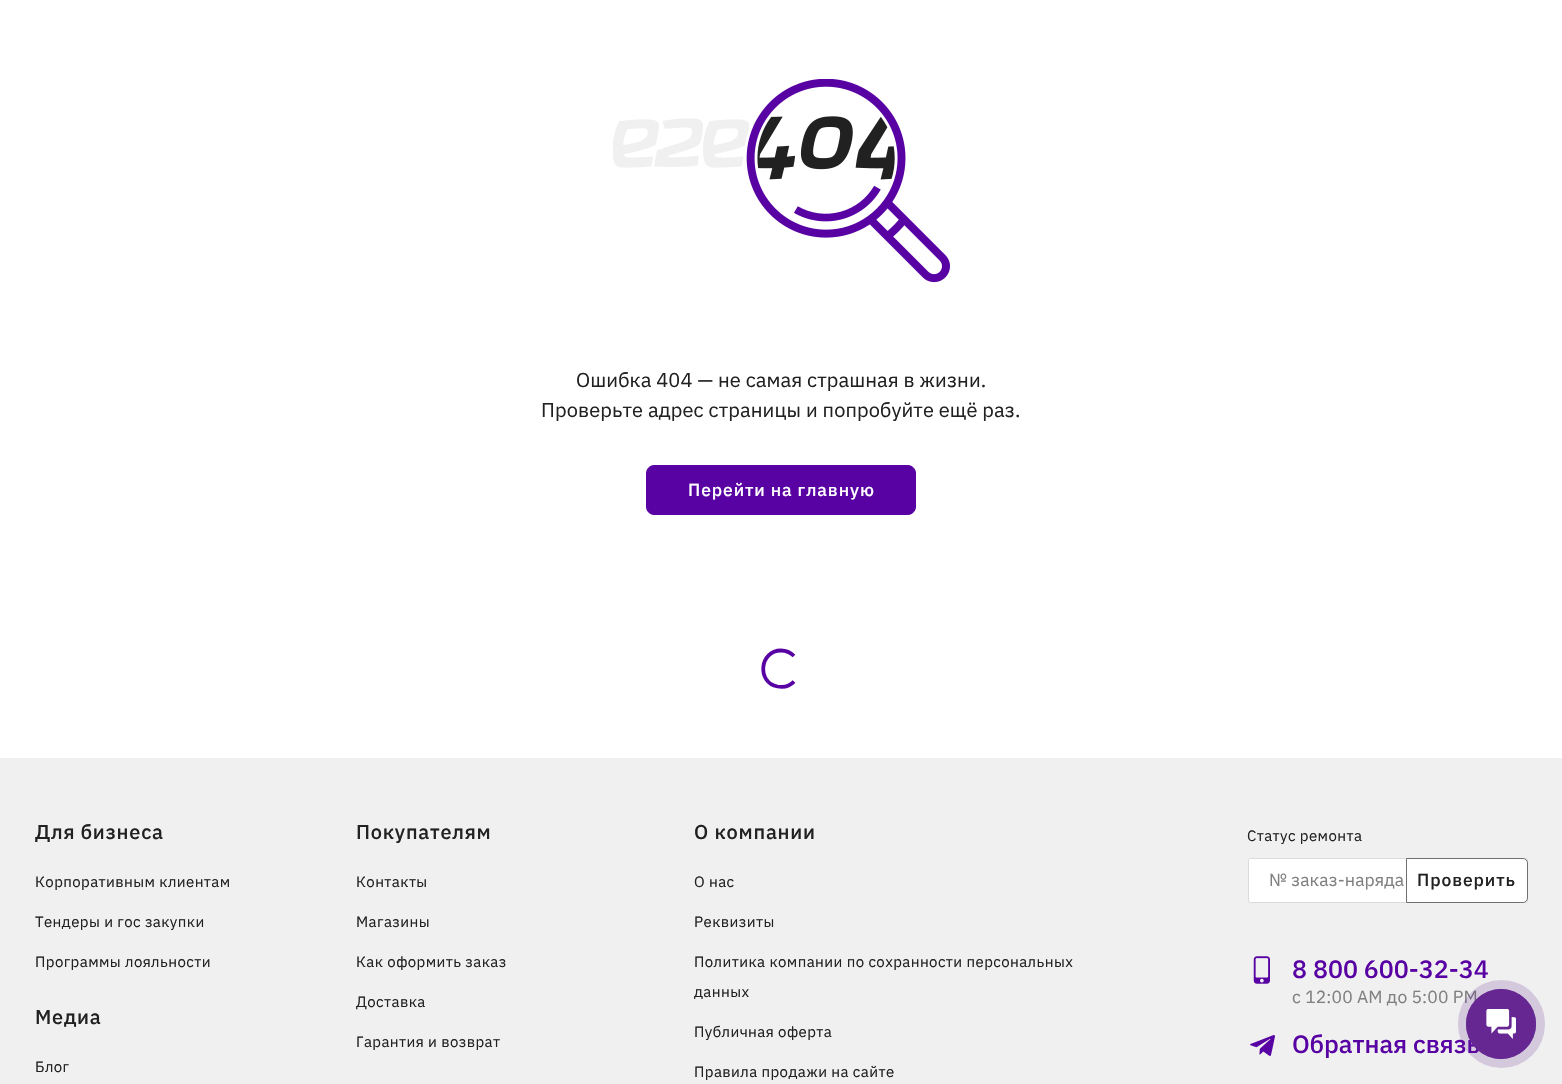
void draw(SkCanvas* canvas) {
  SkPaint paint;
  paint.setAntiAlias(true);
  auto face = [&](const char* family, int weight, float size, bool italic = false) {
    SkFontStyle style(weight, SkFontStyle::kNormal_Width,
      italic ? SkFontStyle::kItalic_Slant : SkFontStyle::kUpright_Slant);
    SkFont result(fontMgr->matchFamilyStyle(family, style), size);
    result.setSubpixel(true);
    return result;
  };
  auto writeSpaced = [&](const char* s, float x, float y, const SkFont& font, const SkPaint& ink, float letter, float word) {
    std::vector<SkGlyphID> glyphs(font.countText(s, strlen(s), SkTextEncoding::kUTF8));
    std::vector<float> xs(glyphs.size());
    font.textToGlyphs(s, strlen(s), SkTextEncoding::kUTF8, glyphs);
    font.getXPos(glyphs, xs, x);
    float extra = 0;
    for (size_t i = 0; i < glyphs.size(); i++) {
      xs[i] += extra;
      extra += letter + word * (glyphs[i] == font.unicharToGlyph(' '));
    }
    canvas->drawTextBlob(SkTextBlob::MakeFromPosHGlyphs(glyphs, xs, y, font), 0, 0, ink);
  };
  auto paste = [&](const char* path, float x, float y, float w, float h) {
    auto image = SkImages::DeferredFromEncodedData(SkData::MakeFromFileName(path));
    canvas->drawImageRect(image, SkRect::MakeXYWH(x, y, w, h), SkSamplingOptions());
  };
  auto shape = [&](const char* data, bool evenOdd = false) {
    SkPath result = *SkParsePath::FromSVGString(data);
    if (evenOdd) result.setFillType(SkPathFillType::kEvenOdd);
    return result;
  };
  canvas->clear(0xffffffff);
  paste("img/1.png", 613, 79, 337, 204);
  paint.setColor(0xff5802a3);
  canvas->drawRoundRect(SkRect::MakeXYWH(646.5f, 465.5f, 269, 49), 7.5f, 7.5f, paint);
  paint.setStroke(true);
  paint.setStrokeWidth(1);
  canvas->drawRoundRect(SkRect::MakeXYWH(646.5f, 465.5f, 269, 49), 7.5f, 7.5f, paint);
  paint.setStrokeWidth(3.8f);
  canvas->drawPath(shape("M794 681.5C790 686 783.5 687.5 777.5 686.5C756.5 682.5 759.5 650.5 781 650.5C786 650.5 790.5 652.5 794 656"), paint);
  paint.setStroke(false);
  paint.setColor(0xfff0f0f0);
  canvas->drawRect(SkRect::MakeXYWH(0, 758, 1562, 326), paint);
  paint.setColor(0xffffffff);
  canvas->drawRoundRect(SkRect::MakeXYWH(1248.5f, 858.5f, 279, 44), 2, 2, paint);
  paint.setStroke(true);
  paint.setStrokeWidth(1);
  paint.setColor(0xffdbdbdb);
  canvas->drawRoundRect(SkRect::MakeXYWH(1248.5f, 858.5f, 279, 44), 2, 2, paint);
  paint.setStroke(false);
  paint.setColor(0xffffffff);
  canvas->drawPath(shape("M1406.5 858.5H1523C1525.5 858.5 1527.5 860.5 1527.5 863V898C1527.5 900.5 1525.5 902.5 1523 902.5H1406.5Z"), paint);
  paint.setStroke(true);
  paint.setColor(0xff707070);
  canvas->drawPath(shape("M1406.5 858.5H1523C1525.5 858.5 1527.5 860.5 1527.5 863V898C1527.5 900.5 1525.5 902.5 1523 902.5H1406.5Z"), paint);
  paste("img/2.png", 1253, 956, 17, 28);
  paste("img/3.png", 1250, 1035, 25, 21);
  auto f0 = face("IBM Plex Sans", 400, 20);
  paint.setStroke(false);
  paint.setColor(0xff212121);
  writeSpaced("Ошибка 404 — не самая страшная в жизни.", 576, 387, f0, paint, 0.1f, 0);
  writeSpaced("Проверьте адрес страницы и попробуйте ещё раз.", 541, 417, f0, paint, 0.1f, 0);
  auto f1 = face("IBM Plex Sans", 500, 17.5f);
  paint.setColor(0xffffffff);
  writeSpaced("Перейти на главную", 688, 496, f1, paint, 0.9f, 0);
  auto f2 = face("IBM Plex Sans", 500, 20);
  paint.setColor(0xff212121);
  writeSpaced("Для бизнеса", 35, 839, f2, paint, 0.75f, 0);
  auto f3 = face("IBM Plex Sans", 400, 15);
  {
    const struct { const char* s; float x, y; } items[] = {
      {"Корпоративным клиентам", 35, 887},
      {"Тендеры и гос закупки", 35, 927},
      {"Программы лояльности", 35, 967},
    };
    for (auto [s, x, y] : items) {
      writeSpaced(s, x, y, f3, paint, 0.4f, 0);
    }
  }
  writeSpaced("Медиа", 35, 1024, f2, paint, 0.75f, 0);
  writeSpaced("Блог", 35, 1072, f3, paint, 0.4f, 0);
  writeSpaced("Покупателям", 356, 839, f2, paint, 0.75f, 0);
  {
    const struct { const char* s; float x, y; } items[] = {
      {"Контакты", 356, 887},
      {"Магазины", 356, 927},
      {"Как оформить заказ", 356, 967},
      {"Доставка", 356, 1007},
      {"Гарантия и возврат", 356, 1047},
    };
    for (auto [s, x, y] : items) {
      writeSpaced(s, x, y, f3, paint, 0.4f, 0);
    }
  }
  writeSpaced("О компании", 694, 839, f2, paint, 0.75f, 0);
  {
    const struct { const char* s; float x, y; } items[] = {
      {"О нас", 694, 887},
      {"Реквизиты", 694, 927},
      {"Политика компании по сохранности персональных", 694, 967},
      {"данных", 694, 997},
      {"Публичная оферта", 694, 1037},
      {"Правила продажи на сайте", 694, 1077},
      {"Статус ремонта", 1247, 841},
    };
    for (auto [s, x, y] : items) {
      writeSpaced(s, x, y, f3, paint, 0.4f, 0);
    }
  }
  auto f4 = face("IBM Plex Sans", 400, 17.5f);
  paint.setColor(0xff808080);
  writeSpaced("№ заказ-наряда", 1269, 886, f4, paint, 0.1f, 0);
  paint.setColor(0xff212121);
  writeSpaced("Проверить", 1417, 886, f1, paint, 0.9f, 0);
  auto f5 = face("IBM Plex Sans", 500, 25);
  paint.setColor(0xff5802a3);
  canvas->drawString("8 800 600‑32‑34", 1292, 978, f5, paint);
  paint.setColor(0xff808080);
  writeSpaced("c 12:00 AM до 5:00 PM", 1292, 1003, f4, paint, 0.1f, 0);
  paint.setColor(0xff5802a3);
  canvas->drawString("Обратная связь", 1292, 1053, f5, paint);
  paint.setColor(0x33662793);
  canvas->drawRoundRect(SkRect::MakeXYWH(1458, 980, 87, 88), 43.5f, 43.5f, paint);
  paint.setStroke(true);
  paint.setColor(0xff662793);
  canvas->drawCircle(1501, 1024, 34.5f, paint);
  paint.setStroke(false);
  canvas->drawCircle(1501, 1024, 35, paint);
  paste("img/4.png", 1486, 1009, 30, 30);
}
